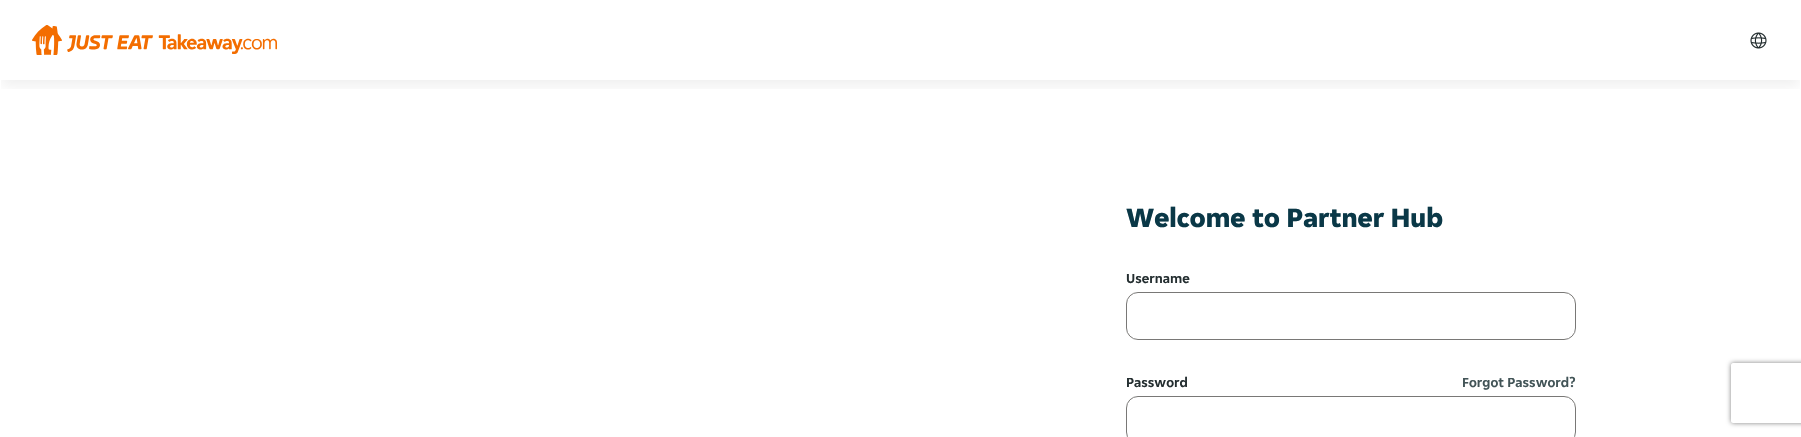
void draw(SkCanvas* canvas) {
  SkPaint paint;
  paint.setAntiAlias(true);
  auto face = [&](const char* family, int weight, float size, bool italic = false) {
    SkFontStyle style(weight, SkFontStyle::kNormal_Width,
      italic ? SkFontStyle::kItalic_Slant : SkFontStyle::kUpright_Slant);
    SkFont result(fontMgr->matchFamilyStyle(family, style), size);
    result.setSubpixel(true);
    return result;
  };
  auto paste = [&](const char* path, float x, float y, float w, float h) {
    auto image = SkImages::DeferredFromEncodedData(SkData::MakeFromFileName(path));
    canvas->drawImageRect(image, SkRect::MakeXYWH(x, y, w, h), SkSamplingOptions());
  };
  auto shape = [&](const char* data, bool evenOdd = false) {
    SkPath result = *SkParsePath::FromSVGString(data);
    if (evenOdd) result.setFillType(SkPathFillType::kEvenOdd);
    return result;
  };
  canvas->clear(0xffffffff);
  canvas->save();
  canvas->clipRect(SkRect::MakeXYWH(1, 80, 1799, 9));
  paint.setColor(0x0f000000);
  paint.setMaskFilter(SkMaskFilter::MakeBlur(kNormal_SkBlurStyle, 6));
  canvas->drawRect(SkRect::MakeXYWH(2, 10, 1797, 76), paint);
  paint.setMaskFilter(nullptr);
  canvas->restore();
  paste("img/1.png", 32, 25, 245, 30);
  paste("img/2.png", 1750, 32, 17, 17);
  paint.setStroke(true);
  paint.setStrokeWidth(1);
  paint.setColor(0xff797876);
  canvas->drawRoundRect(SkRect::MakeXYWH(1126.5f, 292.5f, 449, 47), 11.5f, 11.5f, paint);
  canvas->drawRoundRect(SkRect::MakeXYWH(1126.5f, 396.5f, 449, 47), 11.5f, 11.5f, paint);
  canvas->save();
  canvas->clipPath(shape("M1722 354H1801V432H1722ZM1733 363H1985C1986 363 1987 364 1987 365V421C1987 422 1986 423 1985 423H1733C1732 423 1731 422 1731 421V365C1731 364 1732 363 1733 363Z", true), true);
  paint.setStroke(false);
  paint.setColor(0xff808080);
  paint.setMaskFilter(SkMaskFilter::MakeBlur(kNormal_SkBlurStyle, 2.5f));
  canvas->drawRoundRect(SkRect::MakeXYWH(1731, 363, 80, 60), 2, 2, paint);
  paint.setMaskFilter(nullptr);
  canvas->restore();
  auto f0 = face("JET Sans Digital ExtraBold", 800, 28);
  paint.setColor(0xff0a3847);
  canvas->drawString("Welcome to Partner Hub", 1126, 227, f0, paint);
  auto f1 = face("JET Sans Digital", 700, 14);
  paint.setColor(0xff242e30);
  canvas->drawString("Username", 1126, 283, f1, paint);
  canvas->drawString("Password", 1126, 387, f1, paint);
  paint.setColor(0xff425457);
  canvas->drawString("Forgot Password?", 1462, 387, f1, paint);
}
